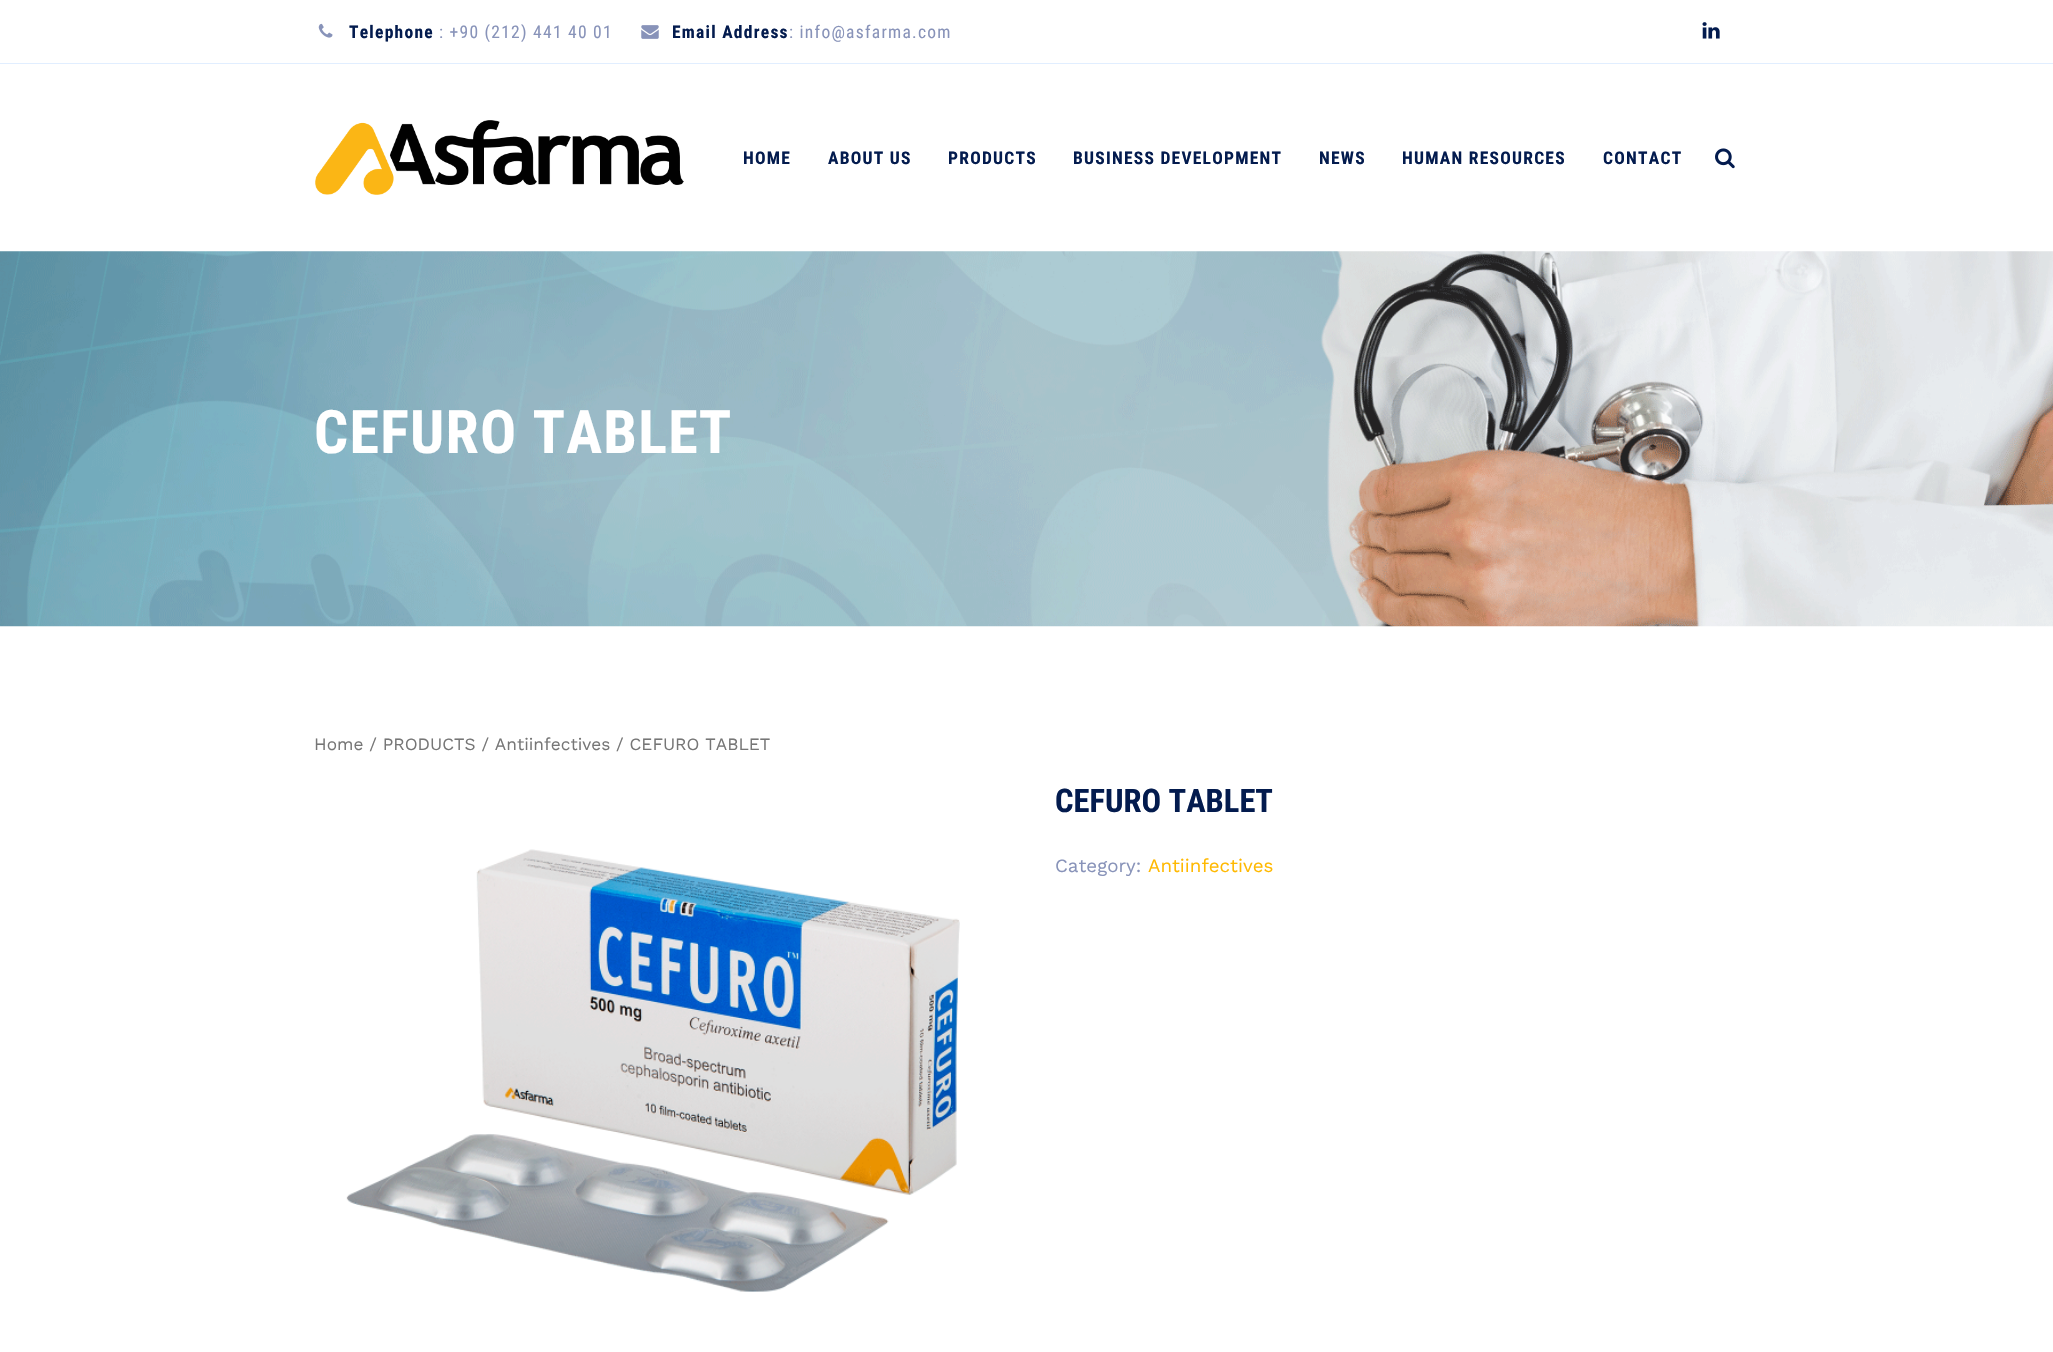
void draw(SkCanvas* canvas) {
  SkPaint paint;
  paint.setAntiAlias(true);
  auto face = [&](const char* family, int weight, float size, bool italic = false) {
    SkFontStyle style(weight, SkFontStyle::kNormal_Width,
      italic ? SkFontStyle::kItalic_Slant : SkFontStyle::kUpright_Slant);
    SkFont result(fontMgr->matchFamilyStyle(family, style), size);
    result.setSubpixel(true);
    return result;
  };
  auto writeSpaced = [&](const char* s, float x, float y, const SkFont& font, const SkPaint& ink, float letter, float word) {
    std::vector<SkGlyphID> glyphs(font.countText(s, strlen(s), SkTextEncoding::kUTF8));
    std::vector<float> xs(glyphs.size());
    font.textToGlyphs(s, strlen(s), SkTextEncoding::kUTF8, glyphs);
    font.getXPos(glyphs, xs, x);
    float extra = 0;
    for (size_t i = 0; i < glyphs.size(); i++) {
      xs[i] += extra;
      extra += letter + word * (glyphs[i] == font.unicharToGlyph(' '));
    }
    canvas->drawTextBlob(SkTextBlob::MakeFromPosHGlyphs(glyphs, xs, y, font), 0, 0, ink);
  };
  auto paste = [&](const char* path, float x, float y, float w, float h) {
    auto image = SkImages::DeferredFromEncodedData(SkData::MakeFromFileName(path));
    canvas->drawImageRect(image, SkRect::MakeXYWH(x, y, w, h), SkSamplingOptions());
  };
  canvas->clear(0xffffffff);
  paint.setColor(0xffe1eeff);
  canvas->drawRect(SkRect::MakeXYWH(0, 63, 2053, 1), paint);
  paste("img/1.png", 318, 23, 15, 15);
  paste("img/2.png", 641, 25, 18, 14);
  paste("img/3.png", 1702, 22, 18, 17);
  paste("img/4.png", 315, 120, 369, 75);
  paste("img/5.png", 1715, 148, 20, 21);
  paste("img/6.png", 0, 251, 2053, 376);
  paste("img/7.png", 346, 849, 614, 443);
  auto f0 = face("Roboto Condensed", 700, 17.5f);
  paint.setColor(0xff031b4e);
  writeSpaced("Telephone", 349, 38, f0, paint, 1.25f, 0);
  auto f1 = face("Roboto Condensed", 400, 17.5f);
  paint.setColor(0xff8893b9);
  writeSpaced(": +90 (212) 441 40 01", 439, 38, f1, paint, 1.25f, 0);
  paint.setColor(0xff031b4e);
  writeSpaced("Email Address", 672, 38, f0, paint, 1.25f, 0);
  paint.setColor(0xff8893b9);
  writeSpaced(": info@asfarma.com", 789, 38, f1, paint, 1.25f, 0);
  paint.setColor(0xff031b4e);
  {
    const struct { const char* s; float x, y; } items[] = {
      {"HOME", 743, 164},
      {"ABOUT US", 828, 164},
      {"PRODUCTS", 948, 164},
      {"BUSINESS DEVELOPMENT", 1073, 164},
      {"NEWS", 1319, 164},
      {"HUMAN RESOURCES", 1402, 164},
      {"CONTACT", 1603, 164},
    };
    for (auto [s, x, y] : items) {
      writeSpaced(s, x, y, f0, paint, 1.25f, 0);
    }
  }
  auto f2 = face("Roboto Condensed", 700, 60);
  paint.setColor(0xffffffff);
  writeSpaced("CEFURO TABLET", 314, 453, f2, paint, 1.25f, 0);
  auto f3 = face("Work Sans", 400, 17.25f);
  paint.setColor(0xff767676);
  canvas->drawString("Home / PRODUCTS / Antiinfectives / CEFURO TABLET", 314, 750, f3, paint);
  auto f4 = face("Roboto Condensed", 700, 32.5f);
  paint.setColor(0xff031b4e);
  canvas->drawString("CEFURO TABLET", 1055, 812, f4, paint);
  auto f5 = face("Work Sans", 400, 18.75f);
  paint.setColor(0xff8893b9);
  canvas->drawString("Category:", 1055, 872, f5, paint);
  paint.setColor(0xffffb901);
  canvas->drawString("Antiinfectives", 1148, 872, f5, paint);
}
